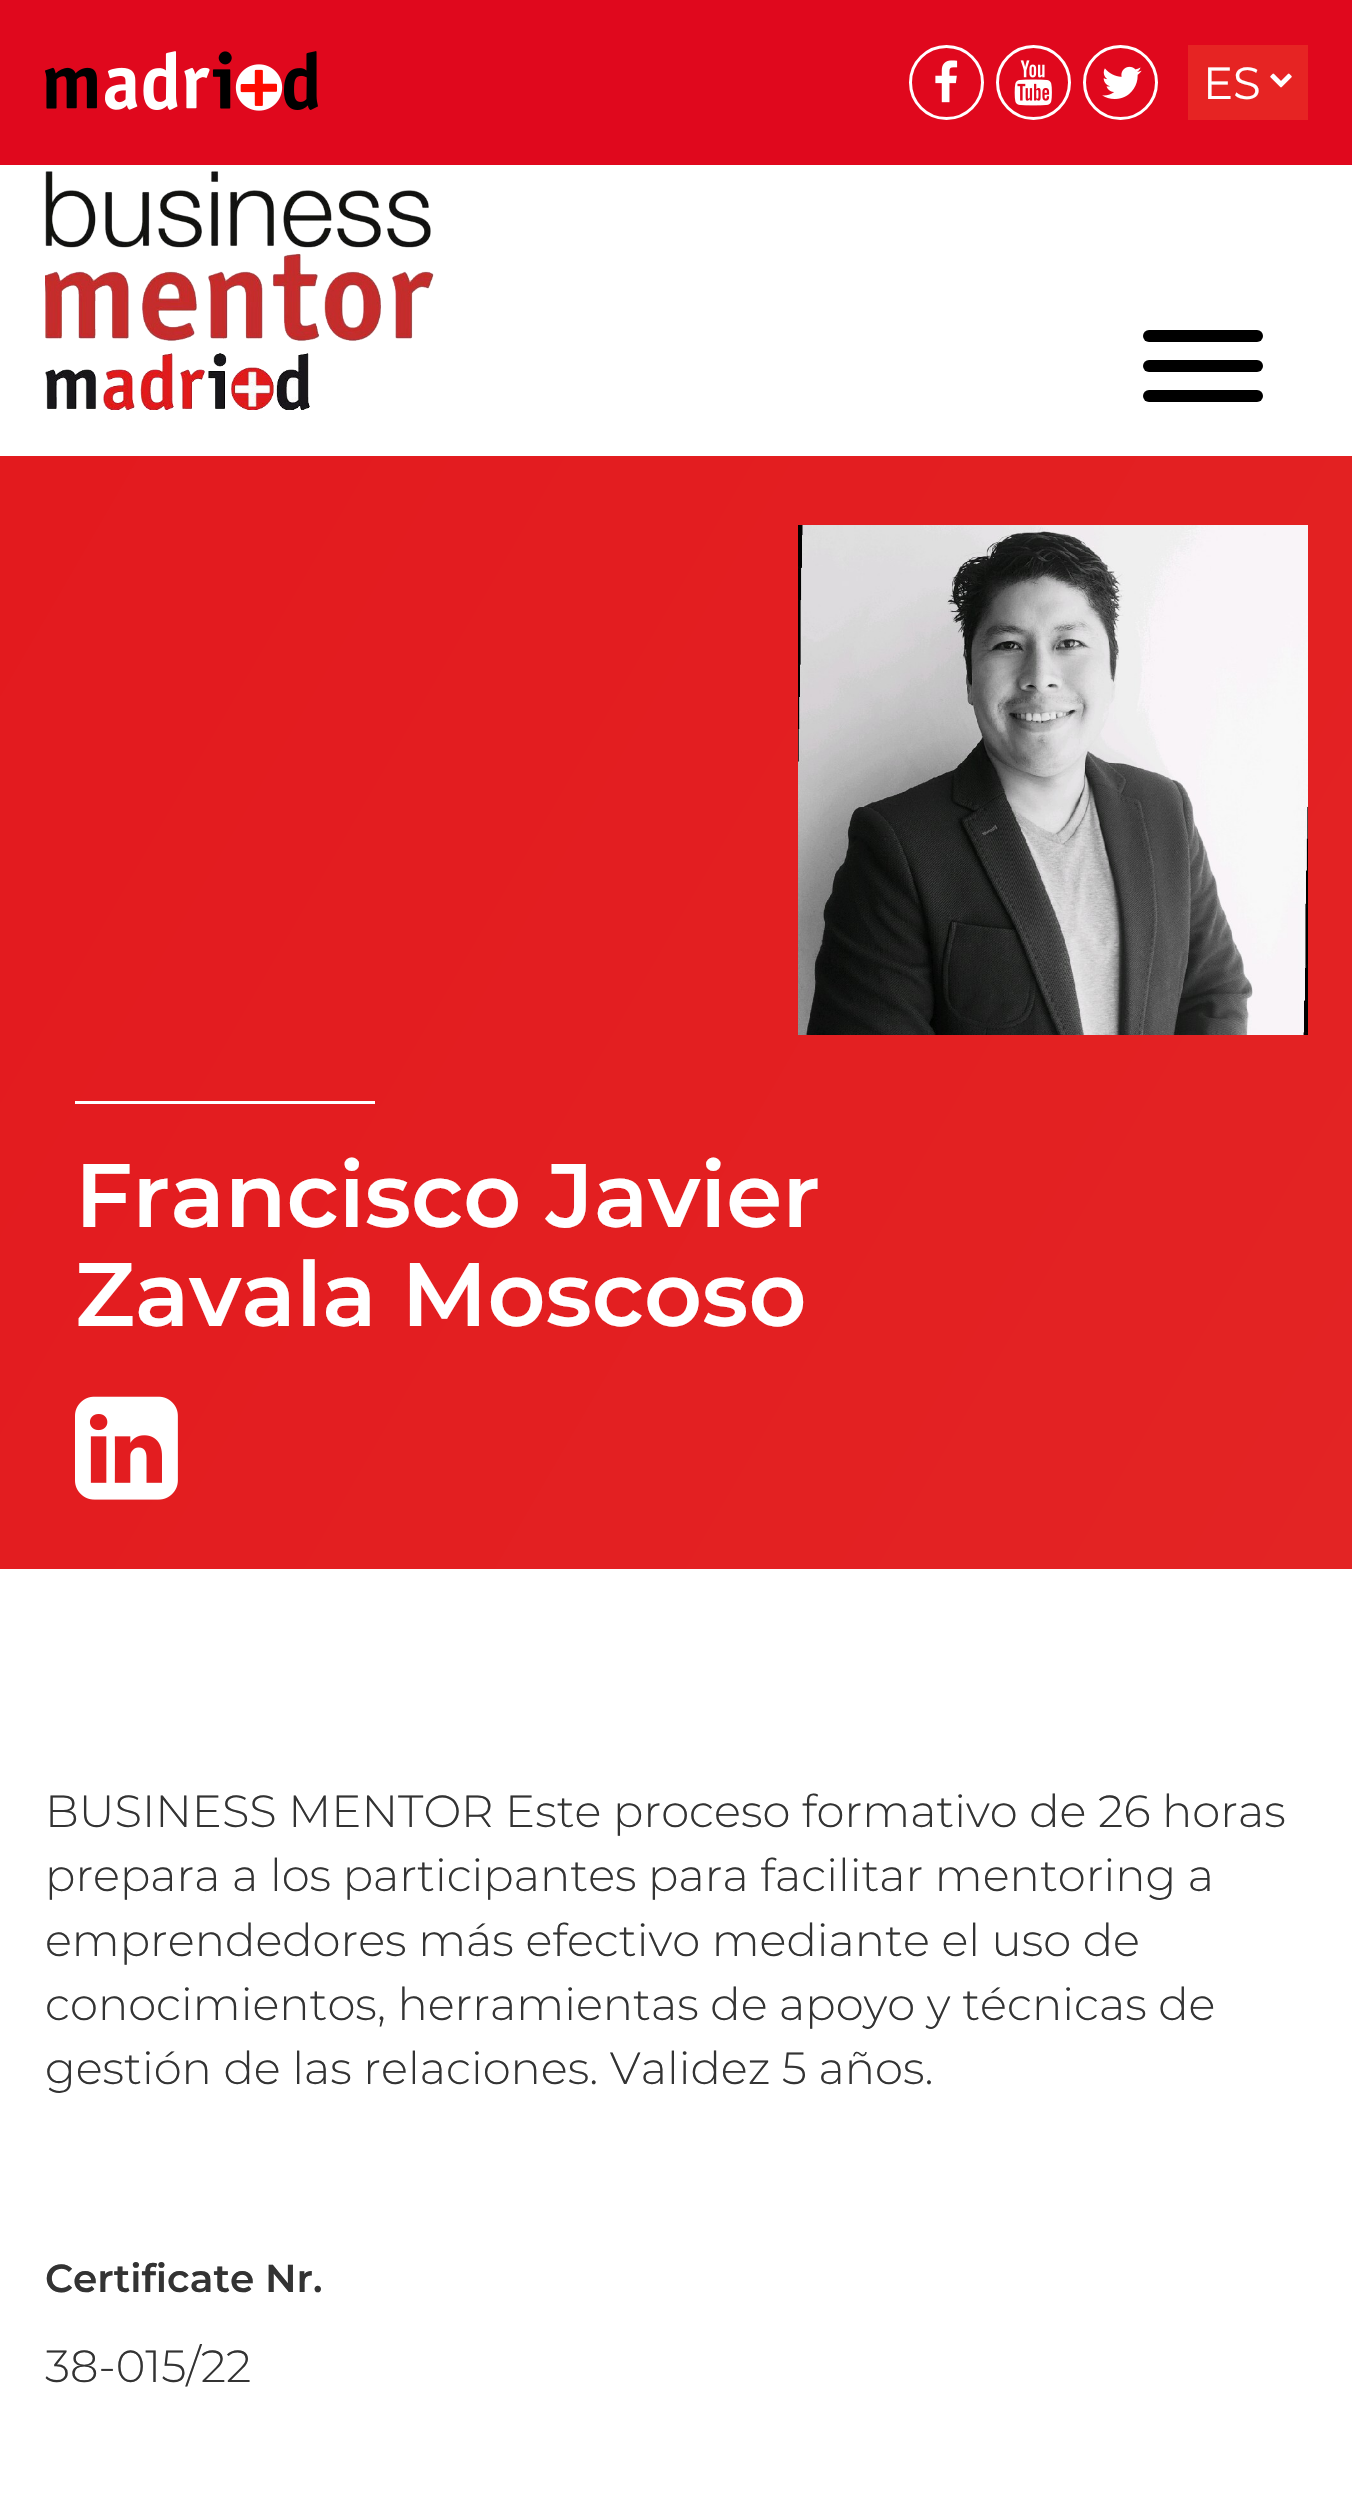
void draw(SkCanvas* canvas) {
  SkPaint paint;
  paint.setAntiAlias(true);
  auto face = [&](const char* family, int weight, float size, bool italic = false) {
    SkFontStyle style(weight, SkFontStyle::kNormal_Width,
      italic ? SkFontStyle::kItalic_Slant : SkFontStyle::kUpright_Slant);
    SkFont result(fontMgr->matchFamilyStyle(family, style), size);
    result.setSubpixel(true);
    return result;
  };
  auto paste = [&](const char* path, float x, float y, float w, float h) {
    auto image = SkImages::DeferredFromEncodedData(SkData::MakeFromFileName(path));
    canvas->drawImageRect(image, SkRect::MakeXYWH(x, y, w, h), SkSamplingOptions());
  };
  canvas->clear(0xffffffff);
  paint.setColor(0xffe0081d);
  canvas->drawRect(SkRect::MakeXYWH(0, 0, 1352, 165), paint);
  paste("img/1.png", 45, 51, 273, 60);
  paint.setStroke(true);
  paint.setStrokeWidth(3);
  paint.setColor(0xffffffff);
  canvas->drawCircle(946.5f, 82.5f, 36, paint);
  paste("img/2.png", 935, 60, 23, 43);
  canvas->drawCircle(1033.5f, 82.5f, 36, paint);
  paste("img/3.png", 1014, 60, 38, 46);
  canvas->drawCircle(1120.5f, 82.5f, 36, paint);
  paste("img/4.png", 1102, 66, 40, 33);
  paint.setStroke(false);
  paint.setColor(0xffe62423);
  canvas->drawRect(SkRect::MakeXYWH(1188, 45, 120, 75), paint);
  paste("img/5.png", 1270, 73, 22, 15);
  paste("img/6.png", 45, 171, 389, 239);
  paint.setColor(0xff000000);
  canvas->drawRoundRect(SkRect::MakeXYWH(1143, 360, 120, 12), 6, 6, paint);
  canvas->drawRoundRect(SkRect::MakeXYWH(1143, 330, 120, 12), 6, 6, paint);
  canvas->drawRoundRect(SkRect::MakeXYWH(1143, 390, 120, 12), 6, 6, paint);
  {
    const SkColor colors[] = {0xffe31a1e, 0xffe31b1f, 0xffe32424};
    const float stops[] = {0, 0.14f, 1};
    const SkPoint ends[] = {{-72, 580}, {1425, 1445}};
    paint.setShader(SkGradientShader::MakeLinear(ends, colors, stops, 3, SkTileMode::kClamp));
    paint.setAlpha(255);
  }
  canvas->drawRect(SkRect::MakeXYWH(0, 456, 1352, 1113), paint);
  paste("img/7.png", 798, 525, 510, 510);
  paint.setShader(nullptr);
  paint.setColor(0xffffffff);
  canvas->drawRect(SkRect::MakeXYWH(75, 1101, 300, 3), paint);
  paste("img/8.png", 75, 1396, 103, 104);
  auto f0 = face("Montserrat", 400, 45);
  canvas->drawString("ES", 1203, 99, f0, paint);
  auto f1 = face("Montserrat", 600, 90);
  canvas->drawString("Francisco Javier", 75, 1227, f1, paint);
  canvas->drawString("Zavala Moscoso", 75, 1326, f1, paint);
  auto f2 = face("Montserrat", 300, 45);
  paint.setColor(0xff333333);
  {
    const struct { const char* s; float x, y; } items[] = {
      {"BUSINESS MENTOR Este proceso formativo de 26 horas", 45, 1827},
      {"prepara a los participantes para facilitar mentoring a", 45, 1891},
      {"emprendedores más efectivo mediante el uso de", 45, 1956},
      {"conocimientos, herramientas de apoyo y técnicas de", 45, 2020},
      {"gestión de las relaciones. Validez 5 años.", 45, 2084},
    };
    for (auto [s, x, y] : items) {
      canvas->drawString(s, x, y, f2, paint);
    }
  }
  auto f3 = face("Montserrat", 600, 39);
  canvas->drawString("Certificate Nr.", 45, 2292, f3, paint);
  canvas->drawString("38-015/22", 45, 2382, f2, paint);
}
